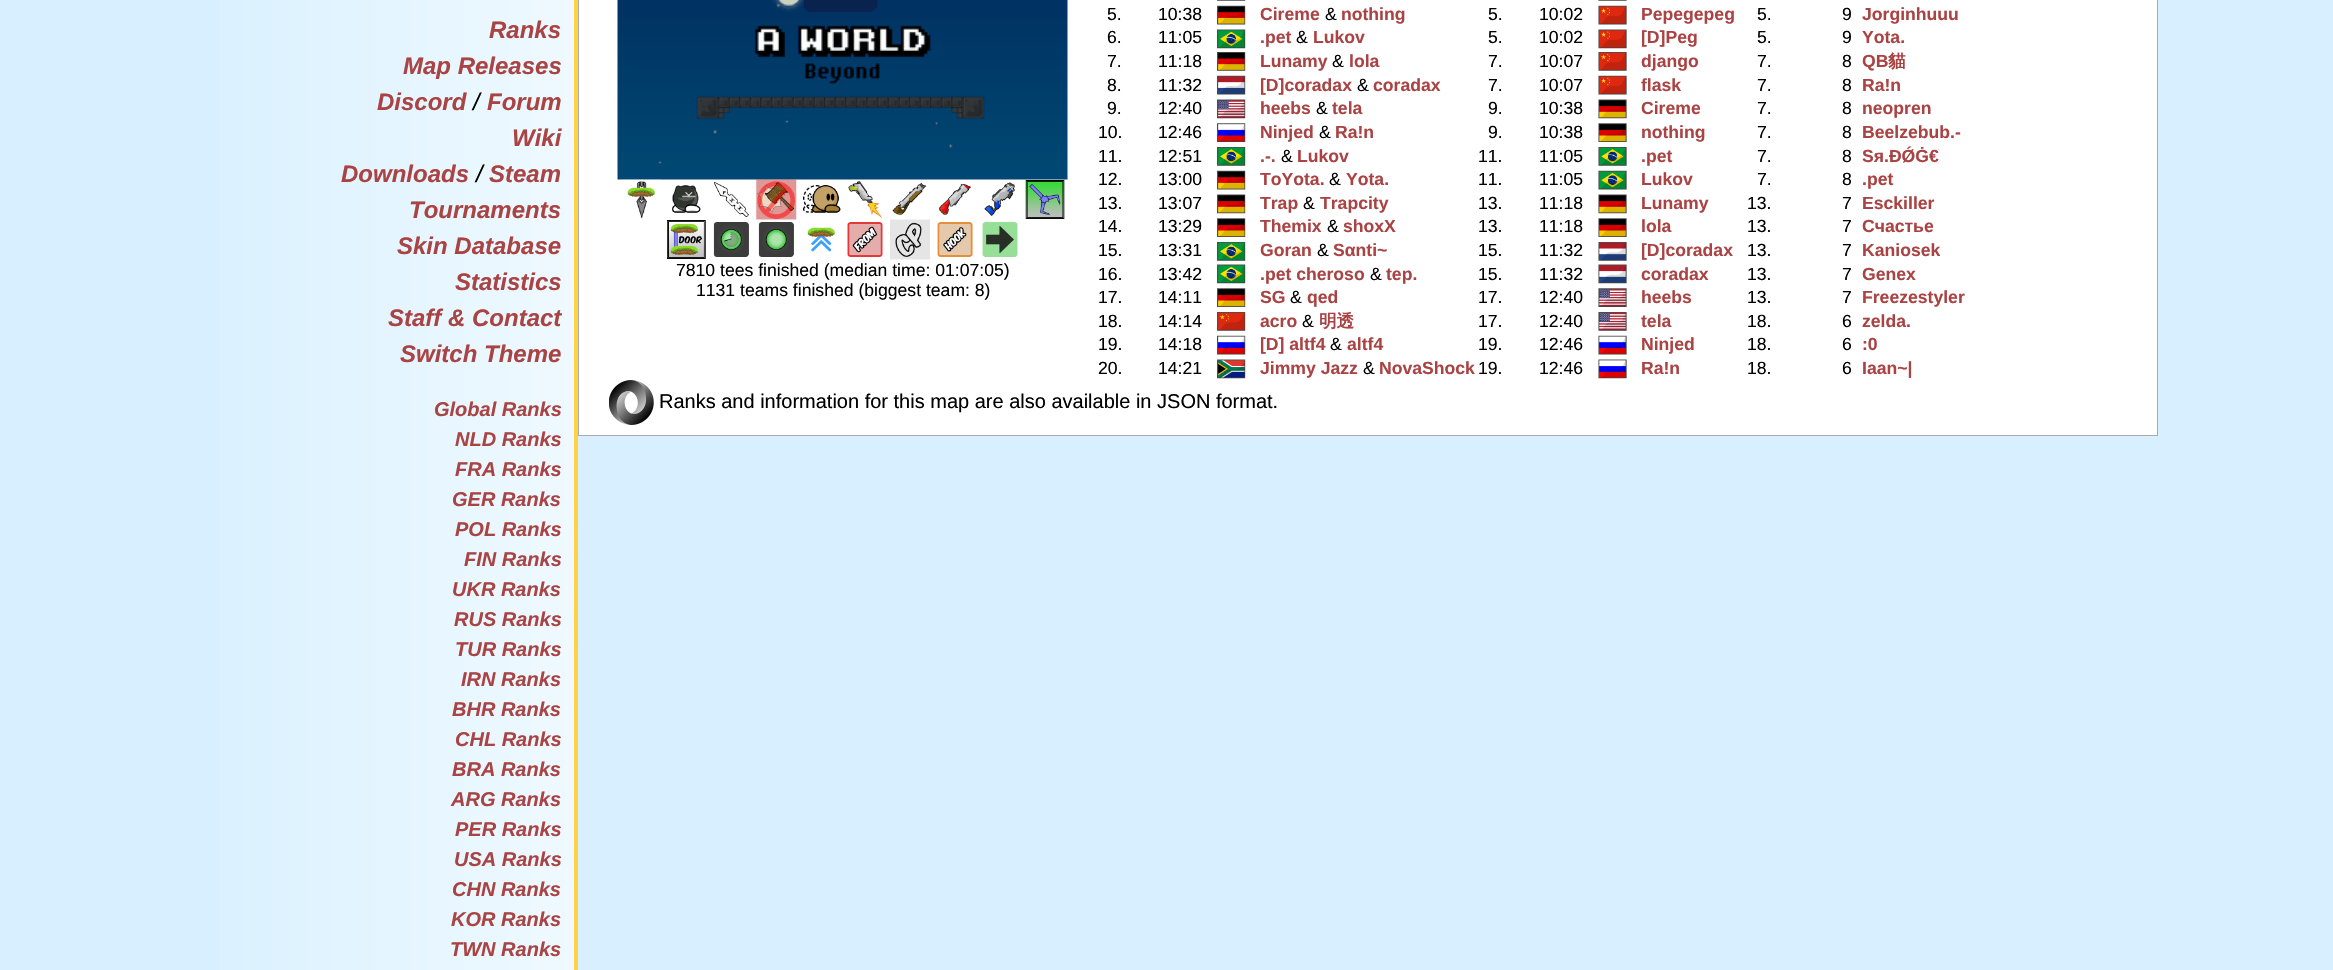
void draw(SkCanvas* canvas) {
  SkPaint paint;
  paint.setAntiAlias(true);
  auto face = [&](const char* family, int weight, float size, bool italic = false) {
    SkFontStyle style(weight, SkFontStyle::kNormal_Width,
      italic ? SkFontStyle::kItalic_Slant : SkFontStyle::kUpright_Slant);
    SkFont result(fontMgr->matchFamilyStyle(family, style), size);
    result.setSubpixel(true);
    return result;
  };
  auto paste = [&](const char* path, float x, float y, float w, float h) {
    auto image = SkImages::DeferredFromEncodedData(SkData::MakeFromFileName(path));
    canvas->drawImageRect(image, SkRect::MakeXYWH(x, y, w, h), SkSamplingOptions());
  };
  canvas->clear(0xffd8efff);
  {
    const SkColor colors[] = {0xffd8f0ff, 0xffeff9ff};
    const float stops[] = {0, 1};
    const SkPoint ends[] = {{177, 545}, {574, 545}};
    paint.setShader(SkGradientShader::MakeLinear(ends, colors, stops, 2, SkTileMode::kClamp));
    paint.setAlpha(255);
  }
  canvas->drawRect(SkRect::MakeXYWH(220, 0, 354, 970), paint);
  paint.setShader(nullptr);
  paint.setColor(0xffffd246);
  canvas->drawRect(SkRect::MakeXYWH(574, 0, 4, 970), paint);
  paint.setColor(0xffffffff);
  canvas->drawRect(SkRect::MakeXYWH(578.5f, -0.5f, 1579, 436), paint);
  paint.setStroke(true);
  paint.setStrokeWidth(1);
  paint.setColor(0xffaaaaaa);
  canvas->drawRect(SkRect::MakeXYWH(578.5f, -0.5f, 1579, 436), paint);
  paste("img/1.png", 617, 0, 451, 180);
  paste("img/2.png", 621, 179, 41, 40);
  paste("img/3.png", 672, 185, 29, 28);
  paste("img/4.png", 714, 182, 35, 36);
  paste("img/5.png", 756, 179, 41, 41);
  paste("img/6.png", 803, 185, 38, 28);
  paste("img/7.png", 848, 181, 35, 37);
  paste("img/8.png", 892, 182, 35, 33);
  paste("img/9.png", 939, 183, 32, 32);
  paste("img/10.png", 984, 182, 31, 34);
  paste("img/11.png", 1025, 180, 40, 39);
  paste("img/12.png", 667, 220, 39, 39);
  paste("img/13.png", 713, 222, 36, 35);
  paste("img/14.png", 758, 222, 36, 35);
  paste("img/15.png", 807, 227, 28, 25);
  paste("img/16.png", 847, 222, 36, 35);
  paste("img/17.png", 890, 219, 40, 41);
  paste("img/18.png", 937, 222, 36, 35);
  paste("img/19.png", 982, 222, 36, 35);
  paste("img/20.png", 1217, 0, 29, 1);
  paste("img/21.png", 1217, 5, 29, 20);
  paste("img/22.png", 1217, 29, 29, 20);
  paste("img/23.png", 1217, 52, 29, 19);
  paste("img/24.png", 1217, 75, 29, 20);
  paste("img/25.png", 1217, 99, 29, 20);
  paste("img/26.png", 1217, 123, 29, 19);
  paste("img/27.png", 1217, 147, 29, 19);
  paste("img/21.png", 1217, 170, 29, 20);
  paste("img/28.png", 1217, 194, 29, 20);
  paste("img/29.png", 1217, 218, 29, 19);
  paste("img/27.png", 1217, 242, 29, 19);
  paste("img/22.png", 1217, 264, 29, 20);
  paste("img/29.png", 1217, 288, 29, 19);
  paste("img/30.png", 1217, 312, 29, 19);
  paste("img/31.png", 1217, 335, 29, 20);
  paste("img/32.png", 1217, 359, 29, 20);
  paste("img/33.png", 1598, 0, 29, 1);
  paste("img/34.png", 1598, 5, 29, 20);
  paste("img/35.png", 1598, 29, 29, 20);
  paste("img/36.png", 1598, 52, 29, 19);
  paste("img/34.png", 1598, 75, 29, 20);
  paste("img/37.png", 1598, 99, 29, 20);
  paste("img/38.png", 1598, 123, 29, 19);
  paste("img/39.png", 1598, 147, 29, 19);
  paste("img/40.png", 1598, 170, 29, 20);
  paste("img/37.png", 1598, 194, 29, 20);
  paste("img/38.png", 1598, 218, 29, 19);
  paste("img/41.png", 1598, 242, 29, 19);
  paste("img/42.png", 1598, 264, 29, 20);
  paste("img/43.png", 1598, 288, 29, 19);
  paste("img/44.png", 1598, 312, 29, 19);
  paste("img/45.png", 1598, 335, 29, 20);
  paste("img/46.png", 1598, 359, 29, 20);
  paste("img/47.png", 609, 380, 45, 45);
  auto f0 = face("Liberation Sans", 700, 24, true);
  paint.setStroke(false);
  paint.setColor(0xffaa4444);
  {
    const struct { const char* s; float x, y; } items[] = {
      {"Ranks", 489, 38},
      {"Map Releases", 403, 74},
      {"Discord", 377, 110},
    };
    for (auto [s, x, y] : items) {
      canvas->drawString(s, x, y, f0, paint);
    }
  }
  auto f1 = face("Liberation Sans", 400, 24, true);
  paint.setColor(0xff000000);
  canvas->drawString("/", 473, 110, f1, paint);
  paint.setColor(0xffaa4444);
  {
    const struct { const char* s; float x, y; } items[] = {
      {"Forum", 487, 110},
      {"Wiki", 512, 146},
      {"Downloads", 341, 182},
    };
    for (auto [s, x, y] : items) {
      canvas->drawString(s, x, y, f0, paint);
    }
  }
  paint.setColor(0xff000000);
  canvas->drawString("/", 476, 182, f1, paint);
  paint.setColor(0xffaa4444);
  {
    const struct { const char* s; float x, y; } items[] = {
      {"Steam", 489, 182},
      {"Tournaments", 409, 218},
      {"Skin Database", 397, 254},
      {"Statistics", 455, 290},
      {"Staff & Contact", 388, 326},
      {"Switch Theme", 400, 362},
    };
    for (auto [s, x, y] : items) {
      canvas->drawString(s, x, y, f0, paint);
    }
  }
  auto f2 = face("Liberation Sans", 700, 20, true);
  {
    const struct { const char* s; float x, y; } items[] = {
      {"Global Ranks", 434, 416},
      {"NLD Ranks", 455, 446},
      {"FRA Ranks", 455, 476},
      {"GER Ranks", 452, 506},
      {"POL Ranks", 455, 536},
      {"FIN Ranks", 464, 566},
      {"UKR Ranks", 452, 596},
      {"RUS Ranks", 454, 626},
      {"TUR Ranks", 455, 656},
      {"IRN Ranks", 461, 686},
      {"BHR Ranks", 452, 716},
      {"CHL Ranks", 455, 746},
      {"BRA Ranks", 452, 776},
      {"ARG Ranks", 451, 806},
      {"PER Ranks", 455, 836},
      {"USA Ranks", 454, 866},
      {"CHN Ranks", 452, 896},
      {"KOR Ranks", 451, 926},
      {"TWN Ranks", 450, 956},
    };
    for (auto [s, x, y] : items) {
      canvas->drawString(s, x, y, f2, paint);
    }
  }
  auto f3 = face("Liberation Sans", 400, 17.6f);
  paint.setColor(0xff000000);
  {
    const struct { const char* s; float x, y; } items[] = {
      {"7810 tees finished (median time: 01:07:05)", 676, 276},
      {"1131 teams finished (biggest team: 8)", 696, 296},
      {"5.", 1107, 20},
      {"10:38", 1158, 20},
    };
    for (auto [s, x, y] : items) {
      canvas->drawString(s, x, y, f3, paint);
    }
  }
  auto f4 = face("Liberation Sans", 700, 17.6f);
  paint.setColor(0xffaa4444);
  canvas->drawString("Cireme", 1260, 20, f4, paint);
  paint.setColor(0xff000000);
  canvas->drawString("&", 1325, 20, f3, paint);
  paint.setColor(0xffaa4444);
  canvas->drawString("nothing", 1341, 20, f4, paint);
  paint.setColor(0xff000000);
  canvas->drawString("6.", 1107, 43, f3, paint);
  canvas->drawString("11:05", 1158, 43, f3, paint);
  paint.setColor(0xffaa4444);
  canvas->drawString(".pet", 1260, 43, f4, paint);
  paint.setColor(0xff000000);
  canvas->drawString("&", 1296, 43, f3, paint);
  paint.setColor(0xffaa4444);
  canvas->drawString("Lukov", 1313, 43, f4, paint);
  paint.setColor(0xff000000);
  canvas->drawString("7.", 1107, 67, f3, paint);
  canvas->drawString("11:18", 1158, 67, f3, paint);
  paint.setColor(0xffaa4444);
  canvas->drawString("Lunamy", 1260, 67, f4, paint);
  paint.setColor(0xff000000);
  canvas->drawString("&", 1332, 67, f3, paint);
  paint.setColor(0xffaa4444);
  canvas->drawString("lola", 1349, 67, f4, paint);
  paint.setColor(0xff000000);
  canvas->drawString("8.", 1107, 91, f3, paint);
  canvas->drawString("11:32", 1158, 91, f3, paint);
  paint.setColor(0xffaa4444);
  canvas->drawString("[D]coradax", 1260, 91, f4, paint);
  paint.setColor(0xff000000);
  canvas->drawString("&", 1357, 91, f3, paint);
  paint.setColor(0xffaa4444);
  canvas->drawString("coradax", 1373, 91, f4, paint);
  paint.setColor(0xff000000);
  canvas->drawString("9.", 1107, 114, f3, paint);
  canvas->drawString("12:40", 1158, 114, f3, paint);
  paint.setColor(0xffaa4444);
  canvas->drawString("heebs", 1260, 114, f4, paint);
  paint.setColor(0xff000000);
  canvas->drawString("&", 1316, 114, f3, paint);
  paint.setColor(0xffaa4444);
  canvas->drawString("tela", 1332, 114, f4, paint);
  paint.setColor(0xff000000);
  canvas->drawString("10.", 1098, 138, f3, paint);
  canvas->drawString("12:46", 1158, 138, f3, paint);
  paint.setColor(0xffaa4444);
  canvas->drawString("Ninjed", 1260, 138, f4, paint);
  paint.setColor(0xff000000);
  canvas->drawString("&", 1319, 138, f3, paint);
  paint.setColor(0xffaa4444);
  canvas->drawString("Ra!n", 1335, 138, f4, paint);
  paint.setColor(0xff000000);
  canvas->drawString("11.", 1098, 162, f3, paint);
  canvas->drawString("12:51", 1158, 162, f3, paint);
  paint.setColor(0xffaa4444);
  canvas->drawString(".-.", 1260, 162, f4, paint);
  paint.setColor(0xff000000);
  canvas->drawString("&", 1281, 162, f3, paint);
  paint.setColor(0xffaa4444);
  canvas->drawString("Lukov", 1297, 162, f4, paint);
  paint.setColor(0xff000000);
  canvas->drawString("12.", 1098, 185, f3, paint);
  canvas->drawString("13:00", 1158, 185, f3, paint);
  paint.setColor(0xffaa4444);
  canvas->drawString("ToYota.", 1260, 185, f4, paint);
  paint.setColor(0xff000000);
  canvas->drawString("&", 1329, 185, f3, paint);
  paint.setColor(0xffaa4444);
  canvas->drawString("Yota.", 1346, 185, f4, paint);
  paint.setColor(0xff000000);
  canvas->drawString("13.", 1098, 209, f3, paint);
  canvas->drawString("13:07", 1158, 209, f3, paint);
  paint.setColor(0xffaa4444);
  canvas->drawString("Trap", 1260, 209, f4, paint);
  paint.setColor(0xff000000);
  canvas->drawString("&", 1303, 209, f3, paint);
  paint.setColor(0xffaa4444);
  canvas->drawString("Trapcity", 1320, 209, f4, paint);
  paint.setColor(0xff000000);
  canvas->drawString("14.", 1098, 232, f3, paint);
  canvas->drawString("13:29", 1158, 232, f3, paint);
  paint.setColor(0xffaa4444);
  canvas->drawString("Themix", 1260, 232, f4, paint);
  paint.setColor(0xff000000);
  canvas->drawString("&", 1327, 232, f3, paint);
  paint.setColor(0xffaa4444);
  canvas->drawString("shoxX", 1343, 232, f4, paint);
  paint.setColor(0xff000000);
  canvas->drawString("15.", 1098, 256, f3, paint);
  canvas->drawString("13:31", 1158, 256, f3, paint);
  paint.setColor(0xffaa4444);
  canvas->drawString("Goran", 1260, 256, f4, paint);
  paint.setColor(0xff000000);
  canvas->drawString("&", 1317, 256, f3, paint);
  paint.setColor(0xffaa4444);
  canvas->drawString("Sαnti~", 1333, 256, f4, paint);
  paint.setColor(0xff000000);
  canvas->drawString("16.", 1098, 280, f3, paint);
  canvas->drawString("13:42", 1158, 280, f3, paint);
  paint.setColor(0xffaa4444);
  canvas->drawString(".pet cheroso", 1260, 280, f4, paint);
  paint.setColor(0xff000000);
  canvas->drawString("&", 1370, 280, f3, paint);
  paint.setColor(0xffaa4444);
  canvas->drawString("tep.", 1386, 280, f4, paint);
  paint.setColor(0xff000000);
  canvas->drawString("17.", 1098, 303, f3, paint);
  canvas->drawString("14:11", 1158, 303, f3, paint);
  paint.setColor(0xffaa4444);
  canvas->drawString("SG", 1260, 303, f4, paint);
  paint.setColor(0xff000000);
  canvas->drawString("&", 1290, 303, f3, paint);
  paint.setColor(0xffaa4444);
  canvas->drawString("qed", 1307, 303, f4, paint);
  paint.setColor(0xff000000);
  canvas->drawString("18.", 1098, 327, f3, paint);
  canvas->drawString("14:14", 1158, 327, f3, paint);
  paint.setColor(0xffaa4444);
  canvas->drawString("acro", 1260, 327, f4, paint);
  paint.setColor(0xff000000);
  canvas->drawString("&", 1302, 327, f3, paint);
  auto f5 = face("WenQuanYi Zen Hei", 700, 17.6f);
  paint.setColor(0xffaa4444);
  canvas->drawString("明透", 1319, 327, f5, paint);
  paint.setColor(0xff000000);
  canvas->drawString("19.", 1098, 350, f3, paint);
  canvas->drawString("14:18", 1158, 350, f3, paint);
  paint.setColor(0xffaa4444);
  canvas->drawString("[D] altf4", 1260, 350, f4, paint);
  paint.setColor(0xff000000);
  canvas->drawString("&", 1330, 350, f3, paint);
  paint.setColor(0xffaa4444);
  canvas->drawString("altf4", 1347, 350, f4, paint);
  paint.setColor(0xff000000);
  canvas->drawString("20.", 1098, 374, f3, paint);
  canvas->drawString("14:21", 1158, 374, f3, paint);
  paint.setColor(0xffaa4444);
  canvas->drawString("Jimmy Jazz", 1260, 374, f4, paint);
  paint.setColor(0xff000000);
  canvas->drawString("&", 1363, 374, f3, paint);
  paint.setColor(0xffaa4444);
  canvas->drawString("NovaShock", 1379, 374, f4, paint);
  paint.setColor(0xff000000);
  canvas->drawString("5.", 1488, 20, f3, paint);
  canvas->drawString("10:02", 1539, 20, f3, paint);
  paint.setColor(0xffaa4444);
  canvas->drawString("Pepegepeg", 1641, 20, f4, paint);
  paint.setColor(0xff000000);
  canvas->drawString("5.", 1488, 43, f3, paint);
  canvas->drawString("10:02", 1539, 43, f3, paint);
  paint.setColor(0xffaa4444);
  canvas->drawString("[D]Peg", 1641, 43, f4, paint);
  paint.setColor(0xff000000);
  canvas->drawString("7.", 1488, 67, f3, paint);
  canvas->drawString("10:07", 1539, 67, f3, paint);
  paint.setColor(0xffaa4444);
  canvas->drawString("django", 1641, 67, f4, paint);
  paint.setColor(0xff000000);
  canvas->drawString("7.", 1488, 91, f3, paint);
  canvas->drawString("10:07", 1539, 91, f3, paint);
  paint.setColor(0xffaa4444);
  canvas->drawString("flask", 1641, 91, f4, paint);
  paint.setColor(0xff000000);
  canvas->drawString("9.", 1488, 114, f3, paint);
  canvas->drawString("10:38", 1539, 114, f3, paint);
  paint.setColor(0xffaa4444);
  canvas->drawString("Cireme", 1641, 114, f4, paint);
  paint.setColor(0xff000000);
  canvas->drawString("9.", 1488, 138, f3, paint);
  canvas->drawString("10:38", 1539, 138, f3, paint);
  paint.setColor(0xffaa4444);
  canvas->drawString("nothing", 1641, 138, f4, paint);
  paint.setColor(0xff000000);
  canvas->drawString("11.", 1478, 162, f3, paint);
  canvas->drawString("11:05", 1539, 162, f3, paint);
  paint.setColor(0xffaa4444);
  canvas->drawString(".pet", 1641, 162, f4, paint);
  paint.setColor(0xff000000);
  canvas->drawString("11.", 1478, 185, f3, paint);
  canvas->drawString("11:05", 1539, 185, f3, paint);
  paint.setColor(0xffaa4444);
  canvas->drawString("Lukov", 1641, 185, f4, paint);
  paint.setColor(0xff000000);
  canvas->drawString("13.", 1478, 209, f3, paint);
  canvas->drawString("11:18", 1539, 209, f3, paint);
  paint.setColor(0xffaa4444);
  canvas->drawString("Lunamy", 1641, 209, f4, paint);
  paint.setColor(0xff000000);
  canvas->drawString("13.", 1478, 232, f3, paint);
  canvas->drawString("11:18", 1539, 232, f3, paint);
  paint.setColor(0xffaa4444);
  canvas->drawString("lola", 1641, 232, f4, paint);
  paint.setColor(0xff000000);
  canvas->drawString("15.", 1478, 256, f3, paint);
  canvas->drawString("11:32", 1539, 256, f3, paint);
  paint.setColor(0xffaa4444);
  canvas->drawString("[D]coradax", 1641, 256, f4, paint);
  paint.setColor(0xff000000);
  canvas->drawString("15.", 1478, 280, f3, paint);
  canvas->drawString("11:32", 1539, 280, f3, paint);
  paint.setColor(0xffaa4444);
  canvas->drawString("coradax", 1641, 280, f4, paint);
  paint.setColor(0xff000000);
  canvas->drawString("17.", 1478, 303, f3, paint);
  canvas->drawString("12:40", 1539, 303, f3, paint);
  paint.setColor(0xffaa4444);
  canvas->drawString("heebs", 1641, 303, f4, paint);
  paint.setColor(0xff000000);
  canvas->drawString("17.", 1478, 327, f3, paint);
  canvas->drawString("12:40", 1539, 327, f3, paint);
  paint.setColor(0xffaa4444);
  canvas->drawString("tela", 1641, 327, f4, paint);
  paint.setColor(0xff000000);
  canvas->drawString("19.", 1478, 350, f3, paint);
  canvas->drawString("12:46", 1539, 350, f3, paint);
  paint.setColor(0xffaa4444);
  canvas->drawString("Ninjed", 1641, 350, f4, paint);
  paint.setColor(0xff000000);
  canvas->drawString("19.", 1478, 374, f3, paint);
  canvas->drawString("12:46", 1539, 374, f3, paint);
  paint.setColor(0xffaa4444);
  canvas->drawString("Ra!n", 1641, 374, f4, paint);
  paint.setColor(0xff000000);
  canvas->drawString("5.", 1757, 20, f3, paint);
  canvas->drawString("9", 1842, 20, f3, paint);
  paint.setColor(0xffaa4444);
  canvas->drawString("Jorginhuuu", 1862, 20, f4, paint);
  paint.setColor(0xff000000);
  canvas->drawString("5.", 1757, 43, f3, paint);
  canvas->drawString("9", 1842, 43, f3, paint);
  paint.setColor(0xffaa4444);
  canvas->drawString("Yota.", 1862, 43, f4, paint);
  paint.setColor(0xff000000);
  canvas->drawString("7.", 1757, 67, f3, paint);
  canvas->drawString("8", 1842, 67, f3, paint);
  paint.setColor(0xffaa4444);
  canvas->drawString("QB", 1862, 67, f4, paint);
  canvas->drawString("貓", 1888, 67, f5, paint);
  paint.setColor(0xff000000);
  canvas->drawString("7.", 1757, 91, f3, paint);
  canvas->drawString("8", 1842, 91, f3, paint);
  paint.setColor(0xffaa4444);
  canvas->drawString("Ra!n", 1862, 91, f4, paint);
  paint.setColor(0xff000000);
  canvas->drawString("7.", 1757, 114, f3, paint);
  canvas->drawString("8", 1842, 114, f3, paint);
  paint.setColor(0xffaa4444);
  canvas->drawString("neopren", 1862, 114, f4, paint);
  paint.setColor(0xff000000);
  canvas->drawString("7.", 1757, 138, f3, paint);
  canvas->drawString("8", 1842, 138, f3, paint);
  paint.setColor(0xffaa4444);
  canvas->drawString("Beelzebub.-", 1862, 138, f4, paint);
  paint.setColor(0xff000000);
  canvas->drawString("7.", 1757, 162, f3, paint);
  canvas->drawString("8", 1842, 162, f3, paint);
  paint.setColor(0xffaa4444);
  canvas->drawString("Sя.ÐǾĠ€", 1862, 162, f4, paint);
  paint.setColor(0xff000000);
  canvas->drawString("7.", 1757, 185, f3, paint);
  canvas->drawString("8", 1842, 185, f3, paint);
  paint.setColor(0xffaa4444);
  canvas->drawString(".pet", 1862, 185, f4, paint);
  paint.setColor(0xff000000);
  canvas->drawString("13.", 1747, 209, f3, paint);
  canvas->drawString("7", 1842, 209, f3, paint);
  paint.setColor(0xffaa4444);
  canvas->drawString("Esckiller", 1862, 209, f4, paint);
  paint.setColor(0xff000000);
  canvas->drawString("13.", 1747, 232, f3, paint);
  canvas->drawString("7", 1842, 232, f3, paint);
  paint.setColor(0xffaa4444);
  canvas->drawString("Счастье", 1862, 232, f4, paint);
  paint.setColor(0xff000000);
  canvas->drawString("13.", 1747, 256, f3, paint);
  canvas->drawString("7", 1842, 256, f3, paint);
  paint.setColor(0xffaa4444);
  canvas->drawString("Kaniosek", 1862, 256, f4, paint);
  paint.setColor(0xff000000);
  canvas->drawString("13.", 1747, 280, f3, paint);
  canvas->drawString("7", 1842, 280, f3, paint);
  paint.setColor(0xffaa4444);
  canvas->drawString("Genex", 1862, 280, f4, paint);
  paint.setColor(0xff000000);
  canvas->drawString("13.", 1747, 303, f3, paint);
  canvas->drawString("7", 1842, 303, f3, paint);
  paint.setColor(0xffaa4444);
  canvas->drawString("Freezestyler", 1862, 303, f4, paint);
  paint.setColor(0xff000000);
  canvas->drawString("18.", 1747, 327, f3, paint);
  canvas->drawString("6", 1842, 327, f3, paint);
  paint.setColor(0xffaa4444);
  canvas->drawString("zelda.", 1862, 327, f4, paint);
  paint.setColor(0xff000000);
  canvas->drawString("18.", 1747, 350, f3, paint);
  canvas->drawString("6", 1842, 350, f3, paint);
  paint.setColor(0xffaa4444);
  canvas->drawString(":0", 1862, 350, f4, paint);
  paint.setColor(0xff000000);
  canvas->drawString("18.", 1747, 374, f3, paint);
  canvas->drawString("6", 1842, 374, f3, paint);
  paint.setColor(0xffaa4444);
  canvas->drawString("Iaan~|", 1862, 374, f4, paint);
  auto f6 = face("Liberation Sans", 400, 20);
  paint.setColor(0xff000000);
  canvas->drawString("Ranks and information for this map are also available in JSON format.", 659, 408, f6, paint);
}
